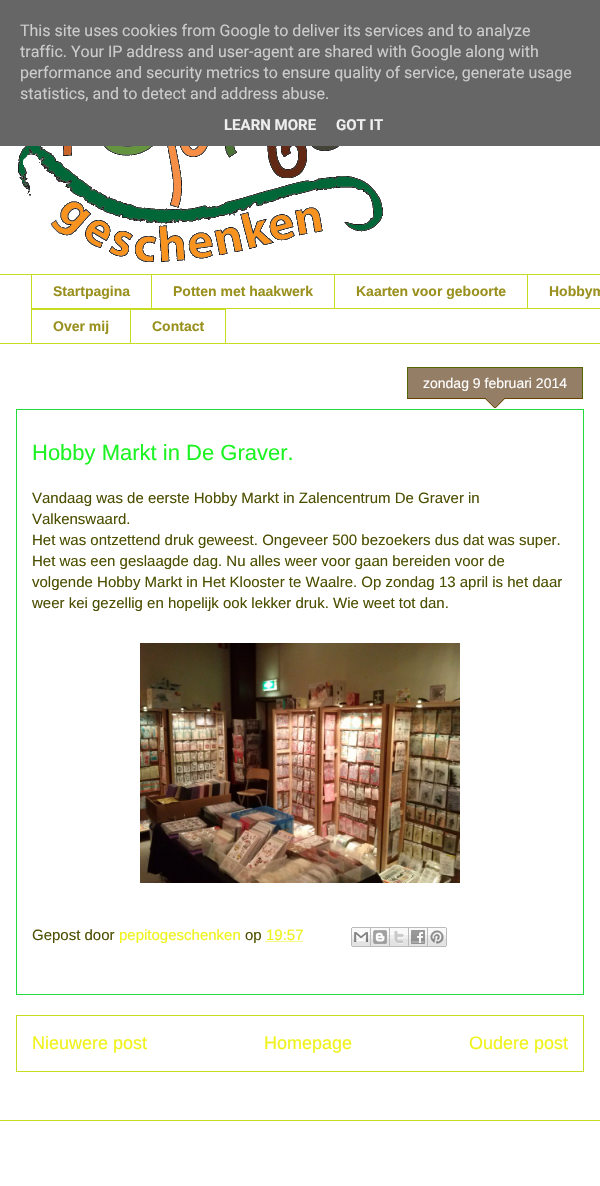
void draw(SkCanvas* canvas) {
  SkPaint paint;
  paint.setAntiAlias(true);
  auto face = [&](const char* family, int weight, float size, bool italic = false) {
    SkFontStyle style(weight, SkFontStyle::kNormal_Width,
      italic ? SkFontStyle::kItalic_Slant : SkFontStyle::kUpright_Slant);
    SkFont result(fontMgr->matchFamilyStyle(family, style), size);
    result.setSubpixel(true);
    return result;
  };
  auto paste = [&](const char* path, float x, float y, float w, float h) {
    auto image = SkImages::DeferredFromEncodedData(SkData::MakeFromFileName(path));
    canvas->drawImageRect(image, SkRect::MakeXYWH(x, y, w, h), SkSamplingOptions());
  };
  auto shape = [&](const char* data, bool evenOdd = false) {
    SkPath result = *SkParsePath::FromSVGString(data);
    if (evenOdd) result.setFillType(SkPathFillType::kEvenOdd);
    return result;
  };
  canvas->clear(0xffffffff);
  paint.setColor(0xff666666);
  canvas->drawRect(SkRect::MakeXYWH(0, 0, 600, 146), paint);
  paste("img/1.png", 18, 146, 365, 116);
  {
    const struct { float x, y, w, h; SkColor color; } items[] = {
      {0, 274, 600, 1, 0xffc5dc22},
      {31, 308, 569, 1, 0xffc5dc22},
      {31, 274, 1, 35, 0xffc5dc22},
      {151, 274, 1, 35, 0xffc5dc22},
      {334, 274, 1, 35, 0xffc5dc22},
      {527, 274, 1, 35, 0xffc5dc22},
      {31, 309, 99, 1, 0xffc5dc22},
      {31, 309, 1, 35, 0xffc5dc22},
    };
    for (auto [x, y, w, h, color] : items) {
      paint.setColor(color);
      canvas->drawRect(SkRect::MakeXYWH(x, y, w, h), paint);
    }
  }
  paint.setStroke(true);
  paint.setStrokeWidth(1);
  canvas->drawRect(SkRect::MakeXYWH(130.5f, 309.5f, 95, 34), paint);
  paint.setStroke(false);
  canvas->drawRect(SkRect::MakeXYWH(0, 343, 600, 1), paint);
  paint.setStroke(true);
  paint.setColor(0xff22dc39);
  canvas->drawRect(SkRect::MakeXYWH(16.5f, 409.5f, 567, 585), paint);
  paste("img/2.png", 407, 368, 176, 40);
  paint.setStroke(false);
  {
    const struct { float x, y, w, h; SkColor color; } items[] = {
      {407, 367, 176, 1, 0xff546600},
      {582, 368, 1, 30, 0xff546600},
      {407, 368, 1, 30, 0xff546600},
    };
    for (auto [x, y, w, h, color] : items) {
      paint.setColor(color);
      canvas->drawRect(SkRect::MakeXYWH(x, y, w, h), paint);
    }
  }
  paste("img/3.png", 140, 643, 320, 240);
  paint.setStroke(true);
  paint.setColor(0xffeff31c);
  paint.setPathEffect(SkDashPathEffect::Make({{1, 1}}, 0));
  canvas->drawPath(shape("M265.5 941.5H303"), paint);
  paint.setPathEffect(nullptr);
  paste("img/4.png", 351, 927, 20, 20);
  paste("img/5.png", 371, 927, 19, 20);
  paste("img/6.png", 390, 927, 19, 20);
  paste("img/7.png", 409, 927, 19, 20);
  paste("img/8.png", 428, 927, 19, 20);
  paint.setColor(0xffc5dc22);
  canvas->drawRect(SkRect::MakeXYWH(16.5f, 1015.5f, 567, 56), paint);
  paint.setStroke(false);
  canvas->drawRect(SkRect::MakeXYWH(0, 1120, 600, 1), paint);
  auto f0 = face("Roboto", 400, 16);
  paint.setColor(0xffcccccc);
  {
    const struct { const char* s; float x, y; } items[] = {
      {"This site uses cookies from Google to deliver its services and to analyze", 20, 36},
      {"traffic. Your IP address and user-agent are shared with Google along with", 20, 57},
      {"performance and security metrics to ensure quality of service, generate usage", 20, 78},
      {"statistics, and to detect and address abuse.", 20, 99},
    };
    for (auto [s, x, y] : items) {
      canvas->drawString(s, x, y, f0, paint);
    }
  }
  auto f1 = face("Roboto", 700, 15);
  paint.setColor(0xffeeeeee);
  canvas->drawString("LEARN MORE", 224, 130, f1, paint);
  canvas->drawString("GOT IT", 336, 130, f1, paint);
  auto f2 = face("Liberation Sans", 700, 14);
  paint.setColor(0xff99901d);
  {
    const struct { const char* s; float x, y; } items[] = {
      {"Startpagina", 53, 296},
      {"Potten met haakwerk", 173, 296},
      {"Kaarten voor geboorte", 356, 296},
      {"Hobbym", 549, 296},
      {"Over mij", 53, 331},
      {"Contact", 152, 331},
    };
    for (auto [s, x, y] : items) {
      canvas->drawString(s, x, y, f2, paint);
    }
  }
  auto f3 = face("Liberation Sans", 400, 14);
  paint.setColor(0xffffffff);
  canvas->drawString("zondag 9 februari 2014", 423, 388, f3, paint);
  auto f4 = face("Liberation Sans", 400, 22);
  paint.setColor(0xff1cf322);
  canvas->drawString("Hobby Markt in De Graver.", 32, 460, f4, paint);
  auto f5 = face("Liberation Sans", 400, 15);
  paint.setColor(0xff4c4e00);
  {
    const struct { const char* s; float x, y; } items[] = {
      {"Vandaag was de eerste Hobby Markt in Zalencentrum De Graver in", 32, 503},
      {"Valkenswaard.", 32, 524},
      {"Het was ontzettend druk geweest. Ongeveer 500 bezoekers dus dat was super.", 32, 545},
      {"Het was een geslaagde dag. Nu alles weer voor gaan bereiden voor de", 32, 566},
      {"volgende Hobby Markt in Het Klooster te Waalre. Op zondag 13 april is het daar", 32, 587},
      {"weer kei gezellig en hopelijk ook lekker druk. Wie weet tot dan.", 32, 608},
      {"Gepost door", 32, 940},
    };
    for (auto [s, x, y] : items) {
      canvas->drawString(s, x, y, f5, paint);
    }
  }
  paint.setColor(0xffeff31c);
  canvas->drawString("pepitogeschenken", 119, 940, f5, paint);
  paint.setColor(0xff4c4e00);
  canvas->drawString("op", 245, 940, f5, paint);
  paint.setColor(0xffeff31c);
  canvas->drawString("19:57", 266, 940, f5, paint);
  auto f6 = face("Liberation Sans", 400, 18);
  {
    const struct { const char* s; float x, y; } items[] = {
      {"Nieuwere post", 32, 1049},
      {"Homepage", 264, 1049},
      {"Oudere post", 469, 1049},
    };
    for (auto [s, x, y] : items) {
      canvas->drawString(s, x, y, f6, paint);
    }
  }
}
